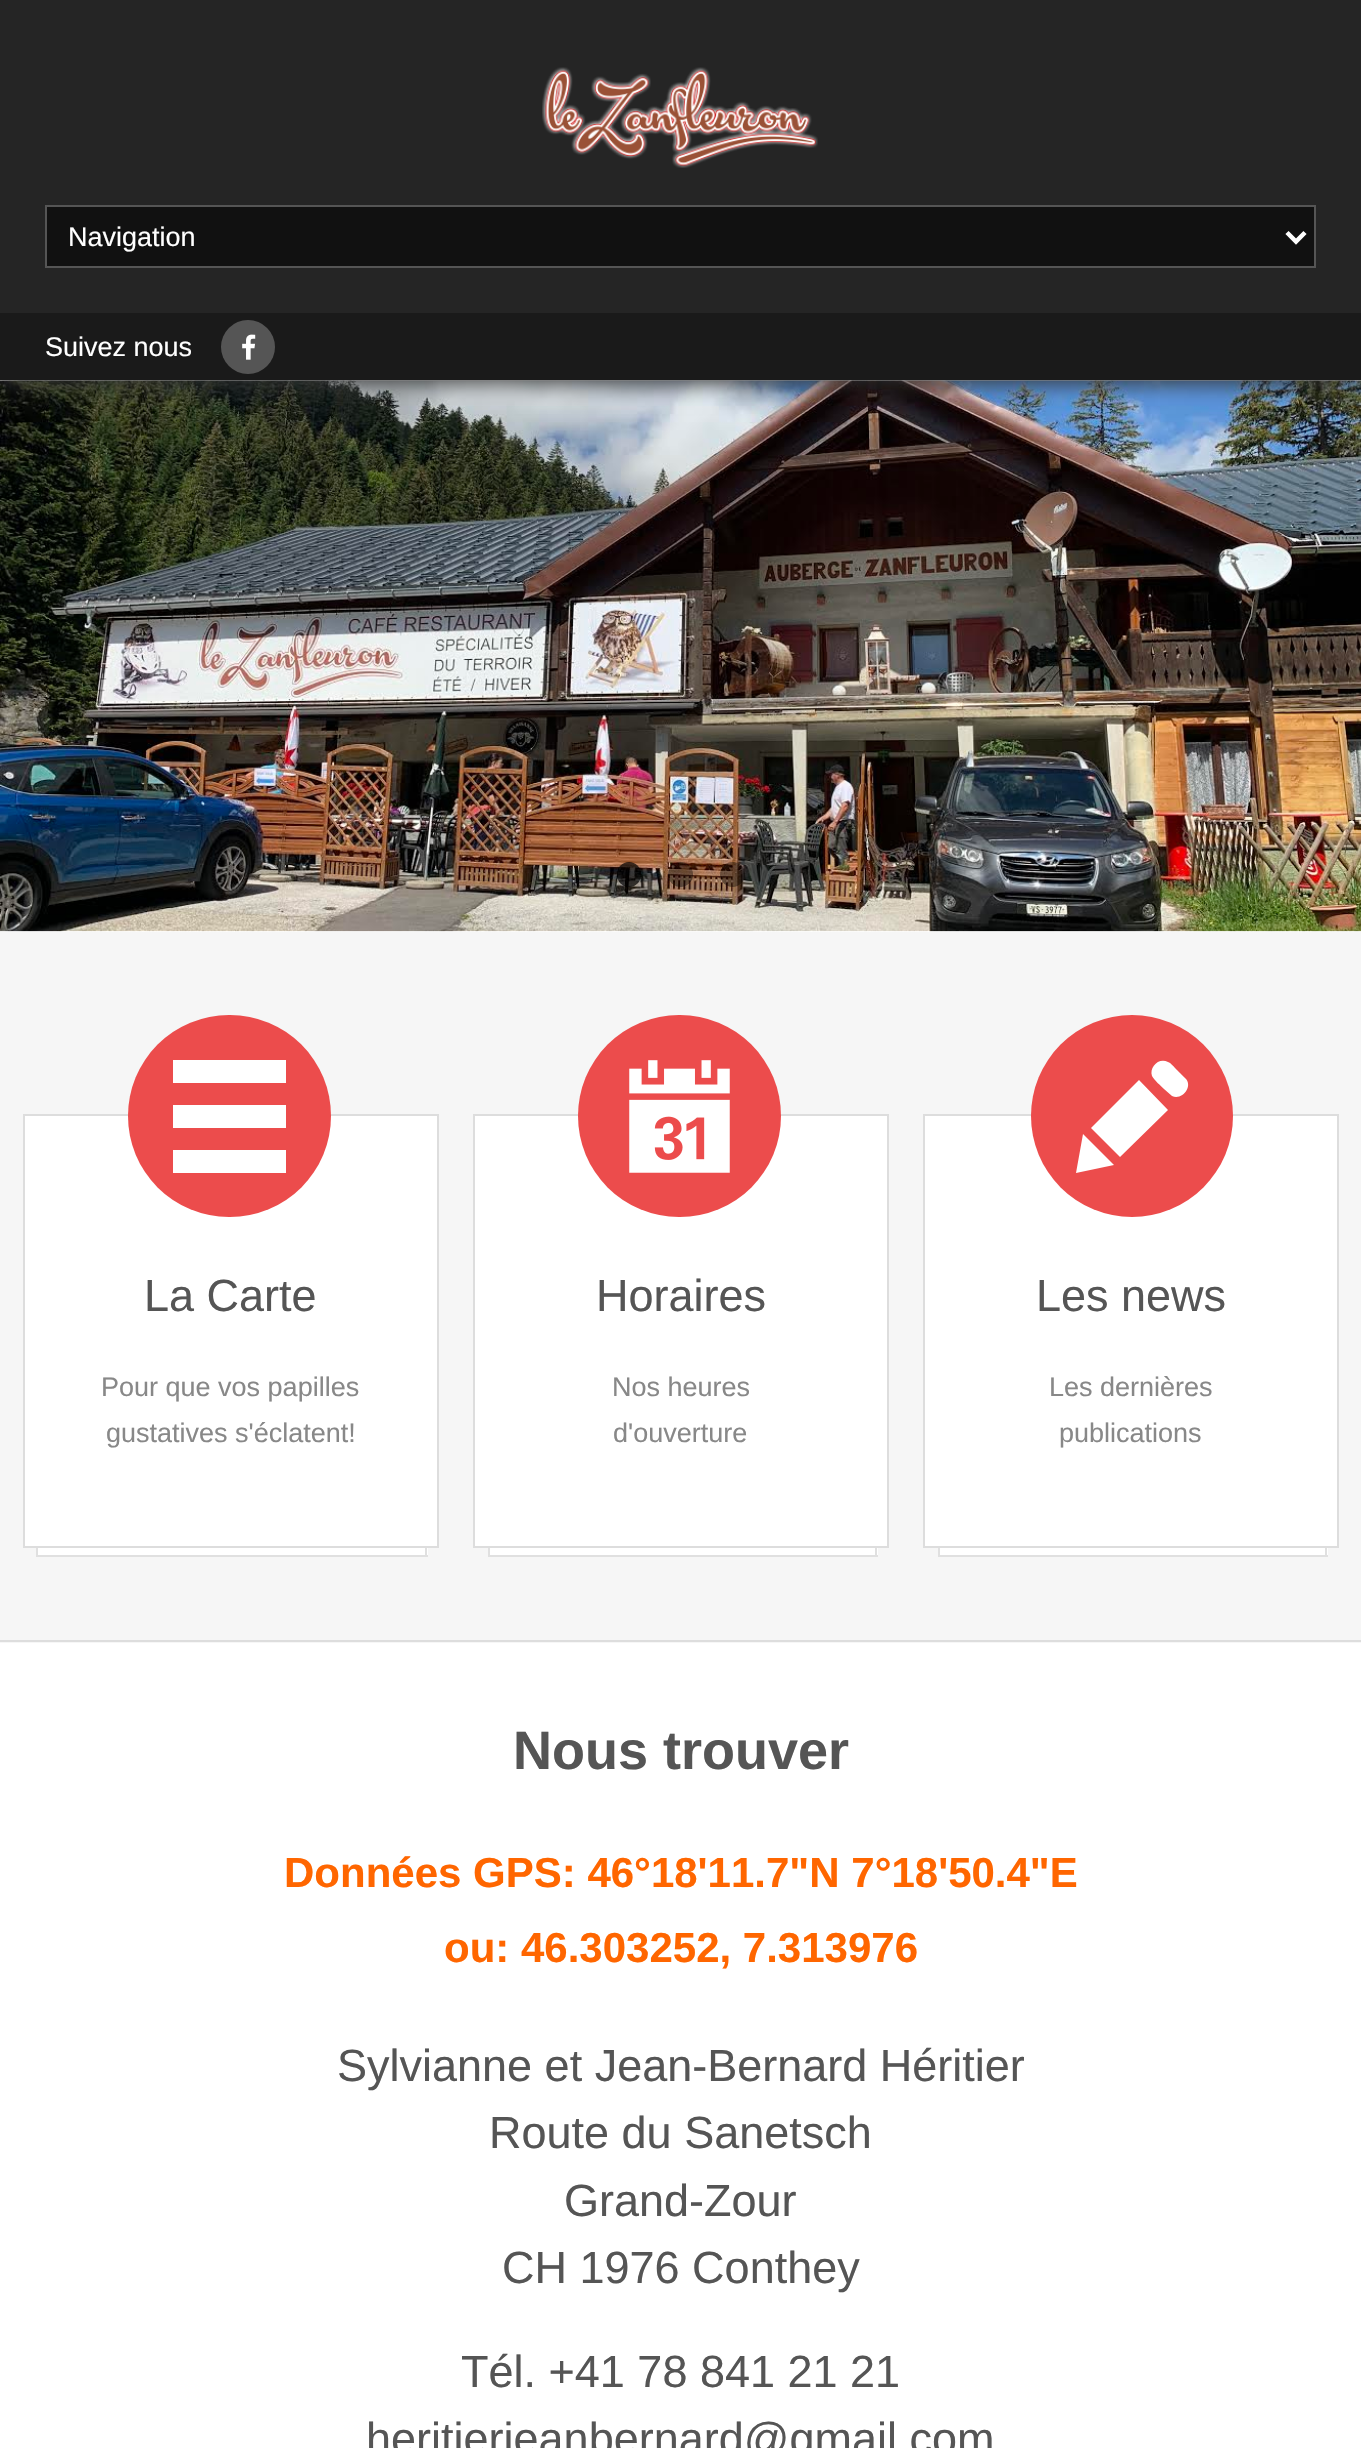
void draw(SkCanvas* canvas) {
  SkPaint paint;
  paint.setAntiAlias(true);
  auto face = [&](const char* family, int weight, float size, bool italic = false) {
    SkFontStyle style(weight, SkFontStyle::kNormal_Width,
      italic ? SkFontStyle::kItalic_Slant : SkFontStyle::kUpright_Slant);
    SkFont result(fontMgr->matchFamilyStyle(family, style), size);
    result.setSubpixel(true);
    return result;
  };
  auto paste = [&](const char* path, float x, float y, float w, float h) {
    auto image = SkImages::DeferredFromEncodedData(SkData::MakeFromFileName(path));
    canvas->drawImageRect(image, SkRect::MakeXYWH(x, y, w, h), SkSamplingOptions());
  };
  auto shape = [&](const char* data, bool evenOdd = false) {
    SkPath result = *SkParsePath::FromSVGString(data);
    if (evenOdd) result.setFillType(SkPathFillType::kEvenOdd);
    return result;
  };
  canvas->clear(0xffffffff);
  paste("img/3.png", 0, 380, 1361, 552);
  paint.setColor(0xff333333);
  paint.setMaskFilter(SkMaskFilter::MakeBlur(kNormal_SkBlurStyle, 11));
  canvas->drawRect(SkRect::MakeXYWH(-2, -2, 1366, 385), paint);
  paint.setMaskFilter(nullptr);
  paint.setColor(0xff252525);
  canvas->drawRect(SkRect::MakeXYWH(0, 0, 1361, 313), paint);
  paste("img/1.png", 542, 67, 276, 101);
  paint.setColor(0xff111111);
  canvas->drawRect(SkRect::MakeXYWH(46, 206, 1269, 61), paint);
  paint.setStroke(true);
  paint.setStrokeWidth(2);
  paint.setColor(0xff555555);
  canvas->drawRect(SkRect::MakeXYWH(46, 206, 1269, 61), paint);
  paint.setStrokeWidth(4.5f);
  paint.setColor(0xffffffff);
  canvas->drawPath(shape("M1287 232.5L1296 241.5L1305 232.5"), paint);
  paint.setStroke(false);
  paint.setColor(0xff1a1a1a);
  canvas->drawRect(SkRect::MakeXYWH(0, 313, 1361, 67), paint);
  paint.setColor(0xff555555);
  canvas->drawCircle(248, 347, 27, paint);
  paste("img/2.png", 242, 334, 14, 26);
  paint.setColor(0xb3000000);
  canvas->drawRoundRect(SkRect::MakeXYWH(617, 862, 24, 25), 12, 12, paint);
  paint.setColor(0x66000000);
  canvas->drawCircle(680.5f, 874.5f, 12.5f, paint);
  canvas->drawCircle(732.5f, 874.5f, 12.5f, paint);
  paint.setColor(0xfff6f6f6);
  canvas->drawRect(SkRect::MakeXYWH(0, 932, 1361, 711), paint);
  paint.setColor(0xffdddddd);
  canvas->drawRect(SkRect::MakeXYWH(0, 1640, 1361, 2), paint);
  paint.setColor(0xffffffff);
  canvas->drawRect(SkRect::MakeXYWH(24, 1115, 414, 432), paint);
  paint.setStroke(true);
  paint.setStrokeWidth(2);
  paint.setColor(0xffdddddd);
  canvas->drawRect(SkRect::MakeXYWH(24, 1115, 414, 432), paint);
  paint.setStroke(false);
  paint.setColor(0xffec4c4c);
  canvas->drawRoundRect(SkRect::MakeXYWH(128, 1015, 203, 202), 101, 101, paint);
  paint.setColor(0xffffffff);
  canvas->drawPath(shape("M173 1060H286V1083H173ZM173 1105H286V1128H173ZM173 1150H286V1173H173Z"), paint);
  {
    const struct { float x, y, w, h; SkColor color; } items[] = {
      {38, 1548, 390, 7, 0xffffffff},
      {425, 1548, 2, 9, 0xffe0e0e0},
      {36, 1555, 392, 2, 0xffe0e0e0},
      {36, 1548, 2, 9, 0xffe0e0e0},
    };
    for (auto [x, y, w, h, color] : items) {
      paint.setColor(color);
      canvas->drawRect(SkRect::MakeXYWH(x, y, w, h), paint);
    }
  }
  paint.setColor(0xffffffff);
  canvas->drawRect(SkRect::MakeXYWH(474, 1115, 414, 432), paint);
  paint.setStroke(true);
  paint.setColor(0xffdddddd);
  canvas->drawRect(SkRect::MakeXYWH(474, 1115, 414, 432), paint);
  paint.setStroke(false);
  paint.setColor(0xffec4c4c);
  canvas->drawRoundRect(SkRect::MakeXYWH(578, 1015, 203, 202), 101, 101, paint);
  paste("img/4.png", 629, 1060, 101, 113);
  {
    const struct { float x, y, w, h; SkColor color; } items[] = {
      {490, 1548, 388, 7, 0xffffffff},
      {875, 1548, 2, 9, 0xffe0e0e0},
      {488, 1555, 390, 2, 0xffe0e0e0},
      {488, 1548, 2, 9, 0xffe0e0e0},
    };
    for (auto [x, y, w, h, color] : items) {
      paint.setColor(color);
      canvas->drawRect(SkRect::MakeXYWH(x, y, w, h), paint);
    }
  }
  paint.setColor(0xffffffff);
  canvas->drawRect(SkRect::MakeXYWH(924, 1115, 414, 432), paint);
  paint.setStroke(true);
  paint.setColor(0xffdddddd);
  canvas->drawRect(SkRect::MakeXYWH(924, 1115, 414, 432), paint);
  paint.setStroke(false);
  paint.setColor(0xffec4c4c);
  canvas->drawCircle(1132, 1116, 101, paint);
  paint.setColor(0xffffffff);
  canvas->drawPath(shape("M1185 1078C1194 1086 1182 1101 1172 1096L1164 1089C1161 1086 1154 1080 1152 1076C1149 1067 1159 1057 1168 1062C1171 1063 1173 1066 1175 1068ZM1091 1128L1139 1080L1168 1110L1120 1157ZM1076 1173L1083 1134L1114 1165Z"), paint);
  {
    const struct { float x, y, w, h; SkColor color; } items[] = {
      {940, 1548, 388, 7, 0xffffffff},
      {1325, 1548, 2, 9, 0xffe0e0e0},
      {938, 1555, 390, 2, 0xffe0e0e0},
      {938, 1548, 2, 9, 0xffe0e0e0},
    };
    for (auto [x, y, w, h, color] : items) {
      paint.setColor(color);
      canvas->drawRect(SkRect::MakeXYWH(x, y, w, h), paint);
    }
  }
  auto f0 = face("Liberation Sans", 400, 27);
  paint.setColor(0xffffffff);
  canvas->drawString("Navigation", 68, 246, f0, paint);
  canvas->drawString("Suivez nous", 45, 356, f0, paint);
  auto f1 = face("Liberation Sans", 400, 45);
  paint.setColor(0xff555555);
  canvas->drawString("La Carte", 144, 1311, f1, paint);
  paint.setColor(0xff888888);
  canvas->drawString("Pour que vos papilles", 101, 1396, f0, paint);
  canvas->drawString("gustatives s'éclatent!", 106, 1442, f0, paint);
  paint.setColor(0xff555555);
  canvas->drawString("Horaires", 596, 1311, f1, paint);
  paint.setColor(0xff888888);
  canvas->drawString("Nos heures", 612, 1396, f0, paint);
  canvas->drawString("d'ouverture", 613, 1442, f0, paint);
  paint.setColor(0xff555555);
  canvas->drawString("Les news", 1036, 1311, f1, paint);
  paint.setColor(0xff888888);
  canvas->drawString("Les dernières", 1049, 1396, f0, paint);
  canvas->drawString("publications", 1059, 1442, f0, paint);
  auto f2 = face("Liberation Sans", 700, 54);
  paint.setColor(0xff555555);
  canvas->drawString("Nous trouver", 513, 1769, f2, paint);
  auto f3 = face("Liberation Sans", 700, 42);
  paint.setColor(0xffff6600);
  canvas->drawString("Données GPS: 46°18'11.7\"N 7°18'50.4\"E", 284, 1887, f3, paint);
  canvas->drawString("ou: 46.303252, 7.313976", 444, 1962, f3, paint);
  paint.setColor(0xff555555);
  {
    const struct { const char* s; float x, y; } items[] = {
      {"Sylvianne et Jean-Bernard Héritier", 337, 2081},
      {"Route du Sanetsch", 489, 2148},
      {"Grand-Zour", 564, 2216},
      {"CH 1976 Conthey", 502, 2283},
      {"Tél. +41 78 841 21 21", 461, 2387},
      {"heritierjeanbernard@gmail.com", 366, 2454},
    };
    for (auto [s, x, y] : items) {
      canvas->drawString(s, x, y, f1, paint);
    }
  }
}
